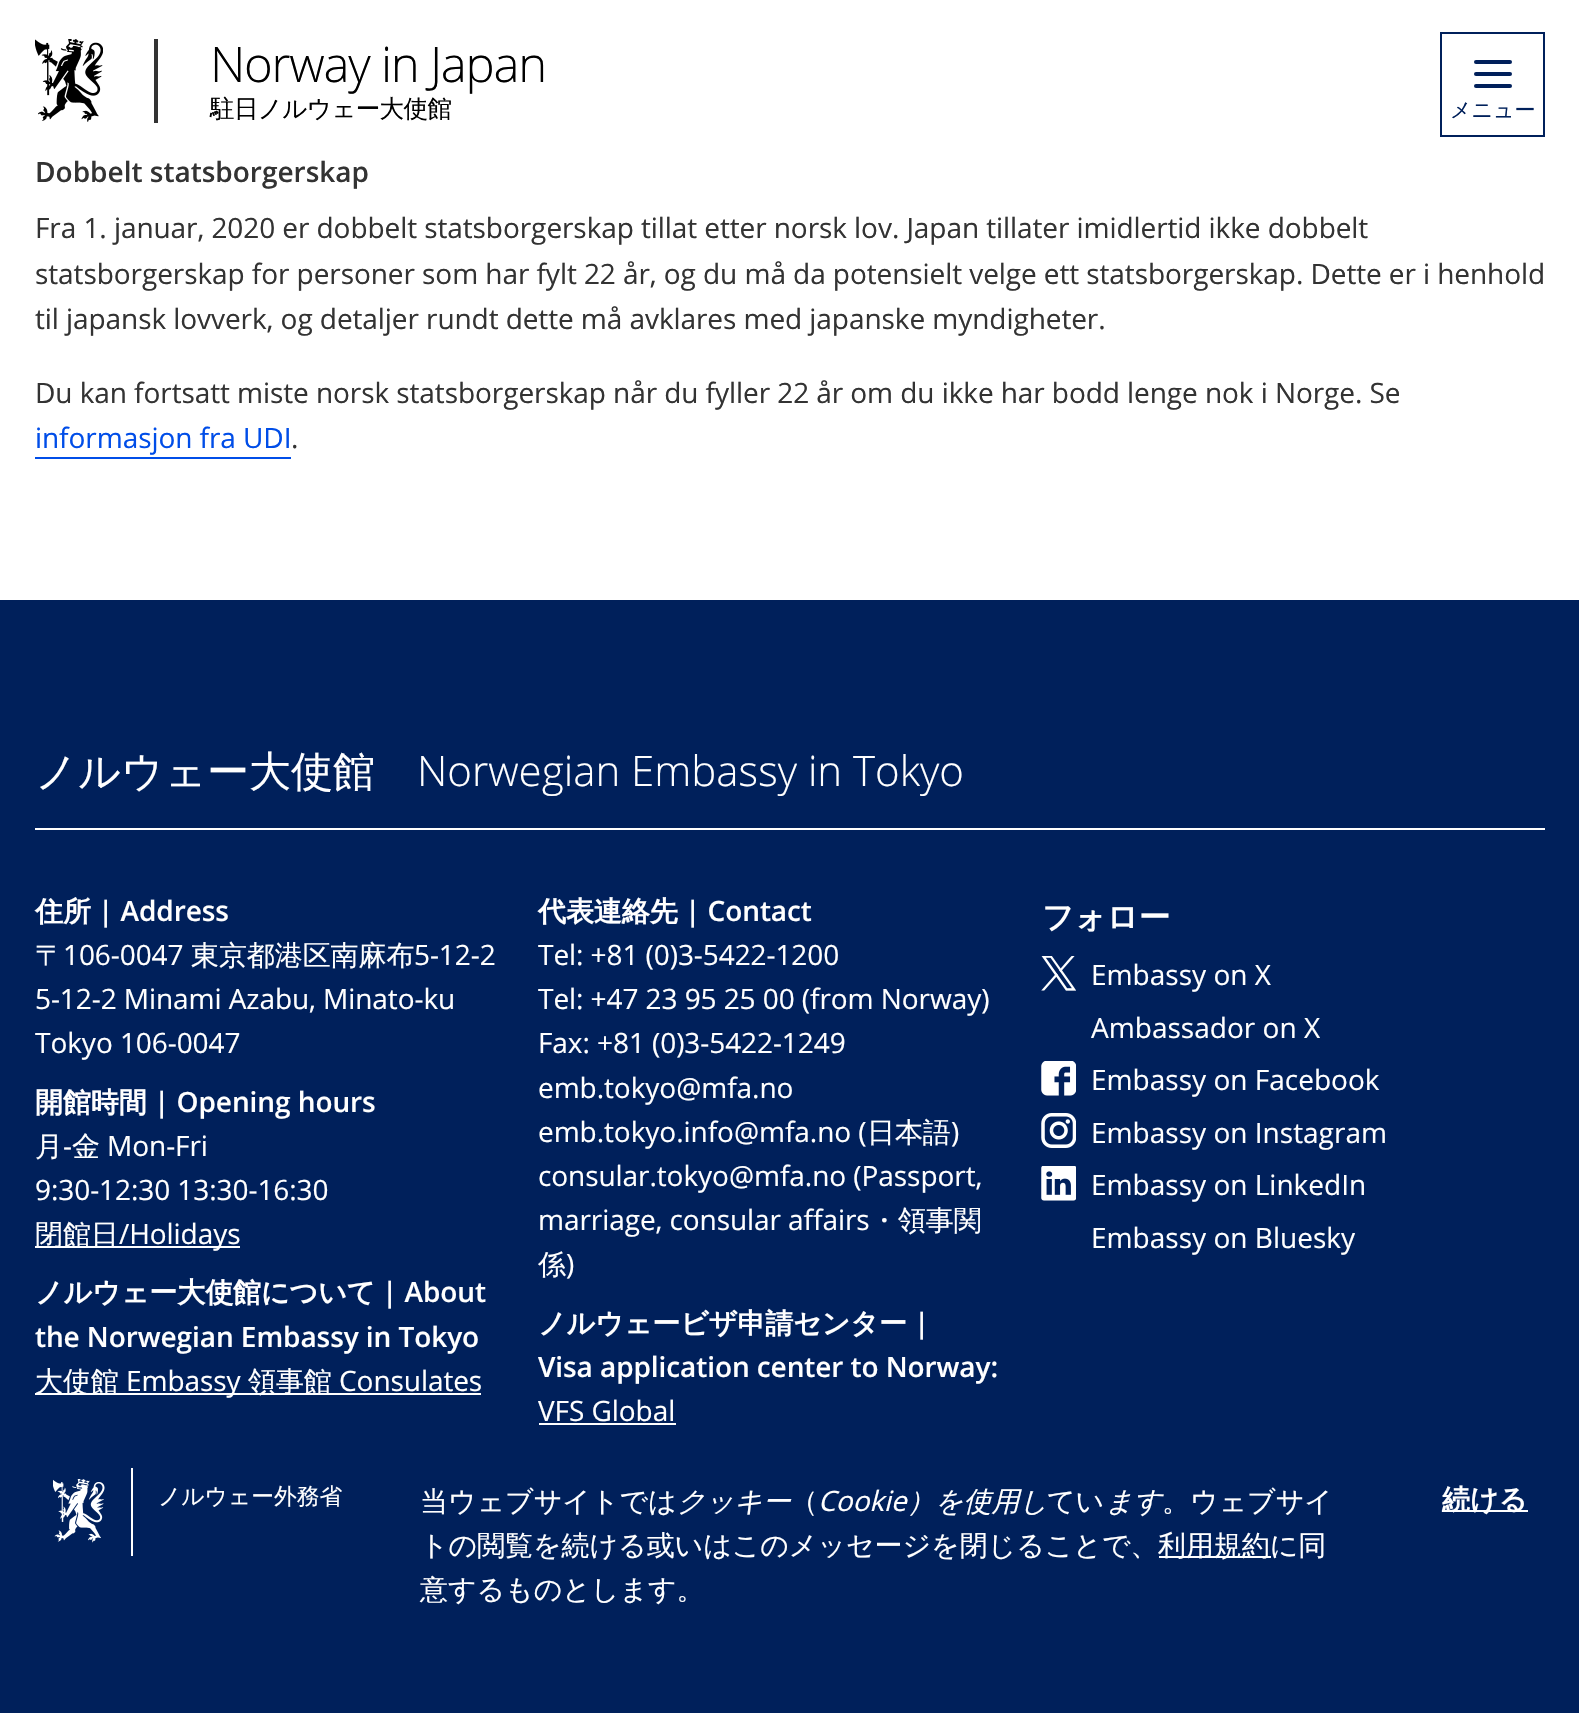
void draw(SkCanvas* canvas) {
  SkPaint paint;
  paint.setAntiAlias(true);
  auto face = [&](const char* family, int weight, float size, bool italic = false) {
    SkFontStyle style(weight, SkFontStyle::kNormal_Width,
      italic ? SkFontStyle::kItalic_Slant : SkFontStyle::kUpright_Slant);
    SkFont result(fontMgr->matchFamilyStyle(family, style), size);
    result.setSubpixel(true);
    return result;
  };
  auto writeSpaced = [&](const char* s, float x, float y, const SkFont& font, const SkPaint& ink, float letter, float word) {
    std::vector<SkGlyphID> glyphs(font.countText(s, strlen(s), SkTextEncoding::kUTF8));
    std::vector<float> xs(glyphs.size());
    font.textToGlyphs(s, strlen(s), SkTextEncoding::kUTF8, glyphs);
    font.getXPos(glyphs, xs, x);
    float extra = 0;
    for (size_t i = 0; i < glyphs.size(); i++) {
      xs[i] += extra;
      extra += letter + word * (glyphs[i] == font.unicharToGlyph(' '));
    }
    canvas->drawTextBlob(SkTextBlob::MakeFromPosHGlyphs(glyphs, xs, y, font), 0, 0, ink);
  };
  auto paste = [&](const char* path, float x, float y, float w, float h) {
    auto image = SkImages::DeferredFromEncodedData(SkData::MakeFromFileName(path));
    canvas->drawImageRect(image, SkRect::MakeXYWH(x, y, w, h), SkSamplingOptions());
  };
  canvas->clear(0xffffffff);
  paste("img/1.png", 35, 39, 68, 83);
  paint.setColor(0xff333333);
  canvas->drawRect(SkRect::MakeXYWH(154, 39, 4, 84), paint);
  paint.setStroke(true);
  paint.setStrokeWidth(2);
  paint.setColor(0xff00205b);
  canvas->drawRect(SkRect::MakeXYWH(1441, 33, 103, 103), paint);
  paint.setStroke(false);
  canvas->drawRoundRect(SkRect::MakeXYWH(1474, 60, 38, 4), 2, 2, paint);
  canvas->drawRoundRect(SkRect::MakeXYWH(1474, 72, 38, 4), 2, 2, paint);
  canvas->drawRoundRect(SkRect::MakeXYWH(1474, 84, 38, 4), 2, 2, paint);
  {
    const struct { float x, y, w, h; SkColor color; } items[] = {
      {35, 457, 256, 2, 0xff004de8},
      {0, 600, 1579, 1113, 0xff00205b},
      {35, 828, 1510, 2, 0xffffffff},
      {35, 1246, 205, 2, 0xffffffff},
      {35, 1393, 446, 2, 0xffffffff},
      {539, 1423, 137, 2, 0xffffffff},
    };
    for (auto [x, y, w, h, color] : items) {
      paint.setColor(color);
      canvas->drawRect(SkRect::MakeXYWH(x, y, w, h), paint);
    }
  }
  paste("img/2.png", 1041, 956, 35, 35);
  paste("img/3.png", 1041, 1061, 35, 35);
  paste("img/4.png", 1041, 1113, 35, 35);
  paste("img/5.png", 1041, 1166, 35, 35);
  paste("img/6.png", 53, 1479, 52, 64);
  {
    const struct { float x, y, w, h; SkColor color; } items[] = {
      {131, 1468, 2, 88, 0xffffffff},
      {1159, 1556, 112, 2, 0xffffffff},
      {1442, 1510, 86, 2, 0xffffffff},
    };
    for (auto [x, y, w, h, color] : items) {
      paint.setColor(color);
      canvas->drawRect(SkRect::MakeXYWH(x, y, w, h), paint);
    }
  }
  auto f0 = face("Open Sans", 300, 49);
  paint.setColor(0xff000000);
  writeSpaced("Norway in Japan", 210, 82, f0, paint, -1.25f, 0);
  auto f1 = face("WenQuanYi Zen Hei", 500, 24.5f);
  writeSpaced("駐日ノルウェー大使館", 210, 117, f1, paint, -0.6f, 0);
  auto f2 = face("WenQuanYi Zen Hei", 500, 21);
  paint.setColor(0xff00205b);
  canvas->drawString("メニュー", 1450, 117, f2, paint);
  auto f3 = face("Open Sans", 600, 28);
  paint.setColor(0xff333333);
  canvas->drawString("Dobbelt statsborgerskap", 35, 182, f3, paint);
  auto f4 = face("Open Sans", 400, 28);
  {
    const struct { const char* s; float x, y; } items[] = {
      {"Fra 1. januar, 2020 er dobbelt statsborgerskap tillat etter norsk lov. Japan tillater imidlertid ikke dobbelt", 35, 238},
      {"statsborgerskap for personer som har fylt 22 år, og du må da potensielt velge ett statsborgerskap. Dette er i henhold", 35, 284},
      {"til japansk lovverk, og detaljer rundt dette må avklares med japanske myndigheter.", 35, 329},
      {"Du kan fortsatt miste norsk statsborgerskap når du fyller 22 år om du ikke har bodd lenge nok i Norge. Se", 35, 403},
    };
    for (auto [s, x, y] : items) {
      writeSpaced(s, x, y, f4, paint, -0.08f, 0);
    }
  }
  paint.setColor(0xff004de8);
  writeSpaced("informasjon fra UDI", 35, 448, f4, paint, -0.08f, 0);
  paint.setColor(0xff333333);
  writeSpaced(".", 291, 448, f4, paint, -0.08f, 0);
  auto f5 = face("WenQuanYi Zen Hei", 500, 42);
  paint.setColor(0xffffffff);
  canvas->drawString("ノルウェー大使館", 35, 786, f5, paint);
  auto f6 = face("Open Sans", 300, 42);
  canvas->drawString("Norwegian Embassy in Tokyo", 417, 786, f6, paint);
  auto f7 = face("WenQuanYi Zen Hei", 700, 28);
  writeSpaced("住所", 35, 921, f7, paint, -0.08f, 0);
  writeSpaced("| Address", 98, 921, f3, paint, -0.08f, 0);
  auto f8 = face("WenQuanYi Zen Hei", 500, 28);
  writeSpaced("〒", 35, 965, f8, paint, -0.08f, 0);
  writeSpaced("106-0047", 63, 965, f4, paint, -0.08f, 0);
  writeSpaced("東京都港区南麻布", 191, 965, f8, paint, -0.08f, 0);
  {
    const struct { const char* s; float x, y; } items[] = {
      {"5-12-2", 414, 965},
      {"5-12-2 Minami Azabu, Minato-ku", 35, 1009},
      {"Tokyo 106-0047", 35, 1053},
    };
    for (auto [s, x, y] : items) {
      writeSpaced(s, x, y, f4, paint, -0.08f, 0);
    }
  }
  writeSpaced("開館時間", 35, 1112, f7, paint, -0.08f, 0);
  writeSpaced("| Opening hours", 154, 1112, f3, paint, -0.08f, 0);
  writeSpaced("月", 35, 1156, f8, paint, -0.08f, 0);
  writeSpaced("-", 63, 1156, f4, paint, -0.08f, 0);
  writeSpaced("金", 72, 1156, f8, paint, -0.08f, 0);
  writeSpaced("Mon-Fri", 107, 1156, f4, paint, -0.08f, 0);
  writeSpaced("9:30-12:30 13:30-16:30", 35, 1200, f4, paint, -0.08f, 0);
  writeSpaced("閉館日", 35, 1244, f8, paint, -0.08f, 0);
  writeSpaced("/Holidays", 119, 1244, f4, paint, -0.08f, 0);
  writeSpaced("ノルウェー大使館について", 35, 1302, f7, paint, -0.08f, 0);
  writeSpaced("| About", 382, 1302, f3, paint, -0.08f, 0);
  writeSpaced("the Norwegian Embassy in Tokyo", 35, 1347, f3, paint, -0.08f, 0);
  writeSpaced("大使館", 35, 1391, f8, paint, -0.08f, 0);
  writeSpaced("Embassy", 126, 1391, f4, paint, -0.08f, 0);
  writeSpaced("領事館", 248, 1391, f8, paint, -0.08f, 0);
  writeSpaced("Consulates", 339, 1391, f4, paint, -0.08f, 0);
  writeSpaced("代表連絡先", 538, 921, f7, paint, -0.08f, 0);
  writeSpaced("| Contact", 685, 921, f3, paint, -0.08f, 0);
  {
    const struct { const char* s; float x, y; } items[] = {
      {"Tel: +81 (0)3-5422-1200", 538, 965},
      {"Tel: +47 23 95 25 00 (from Norway)", 538, 1009},
      {"Fax: +81 (0)3-5422-1249", 538, 1053},
      {"emb.tokyo@mfa.no", 538, 1098},
      {"emb.tokyo.info@mfa.no (", 538, 1142},
    };
    for (auto [s, x, y] : items) {
      writeSpaced(s, x, y, f4, paint, -0.08f, 0);
    }
  }
  writeSpaced("日本語", 867, 1142, f8, paint, -0.08f, 0);
  {
    const struct { const char* s; float x, y; } items[] = {
      {")", 951, 1142},
      {"consular.tokyo@mfa.no (Passport,", 538, 1186},
      {"marriage, consular affairs", 538, 1230},
    };
    for (auto [s, x, y] : items) {
      writeSpaced(s, x, y, f4, paint, -0.08f, 0);
    }
  }
  writeSpaced("・領事関", 870, 1230, f8, paint, -0.08f, 0);
  writeSpaced("係", 538, 1274, f8, paint, -0.08f, 0);
  writeSpaced(")", 566, 1274, f4, paint, -0.08f, 0);
  writeSpaced("ノルウェービザ申請センター", 538, 1333, f7, paint, -0.08f, 0);
  writeSpaced("|", 914, 1333, f3, paint, -0.08f, 0);
  writeSpaced("Visa application center to Norway:", 538, 1377, f3, paint, -0.08f, 0);
  writeSpaced("VFS Global", 538, 1421, f4, paint, -0.08f, 0);
  auto f9 = face("WenQuanYi Zen Hei", 700, 31.5f);
  canvas->drawString("フォロー", 1042, 928, f9, paint);
  {
    const struct { const char* s; float x, y; } items[] = {
      {"Embassy on X", 1091, 985},
      {"Ambassador on X", 1091, 1038},
      {"Embassy on Facebook", 1091, 1090},
      {"Embassy on Instagram", 1091, 1143},
      {"Embassy on LinkedIn", 1091, 1195},
      {"Embassy on Bluesky", 1091, 1248},
    };
    for (auto [s, x, y] : items) {
      canvas->drawString(s, x, y, f4, paint);
    }
  }
  auto f10 = face("WenQuanYi Zen Hei", 500, 22.75f);
  canvas->drawString("ノルウェー外務省", 158, 1504, f10, paint);
  writeSpaced("当ウェブサイトでは", 420, 1511, f8, paint, -0.08f, 0);
  auto f11 = face("WenQuanYi Zen Hei", 500, 28, true);
  writeSpaced("クッキー", 677, 1511, f11, paint, -0.08f, 0);
  writeSpaced("（", 790, 1511, f8, paint, -0.08f, 0);
  auto f12 = face("Open Sans", 400, 28, true);
  writeSpaced("Cookie", 818, 1511, f12, paint, -0.08f, 0);
  writeSpaced("）を使用し", 907, 1511, f11, paint, -0.08f, 0);
  writeSpaced("てい", 1047, 1511, f8, paint, -0.08f, 0);
  writeSpaced("ます", 1105, 1511, f11, paint, -0.08f, 0);
  {
    const struct { const char* s; float x, y; } items[] = {
      {"。ウェブサイ", 1162, 1511},
      {"トの閲覧を続ける或いはこのメッセージを閉じることで、", 420, 1555},
      {"利用規約に同", 1158, 1555},
      {"意するものとします。", 420, 1599},
    };
    for (auto [s, x, y] : items) {
      writeSpaced(s, x, y, f8, paint, -0.08f, 0);
    }
  }
  canvas->drawString("続ける", 1442, 1509, f7, paint);
}
